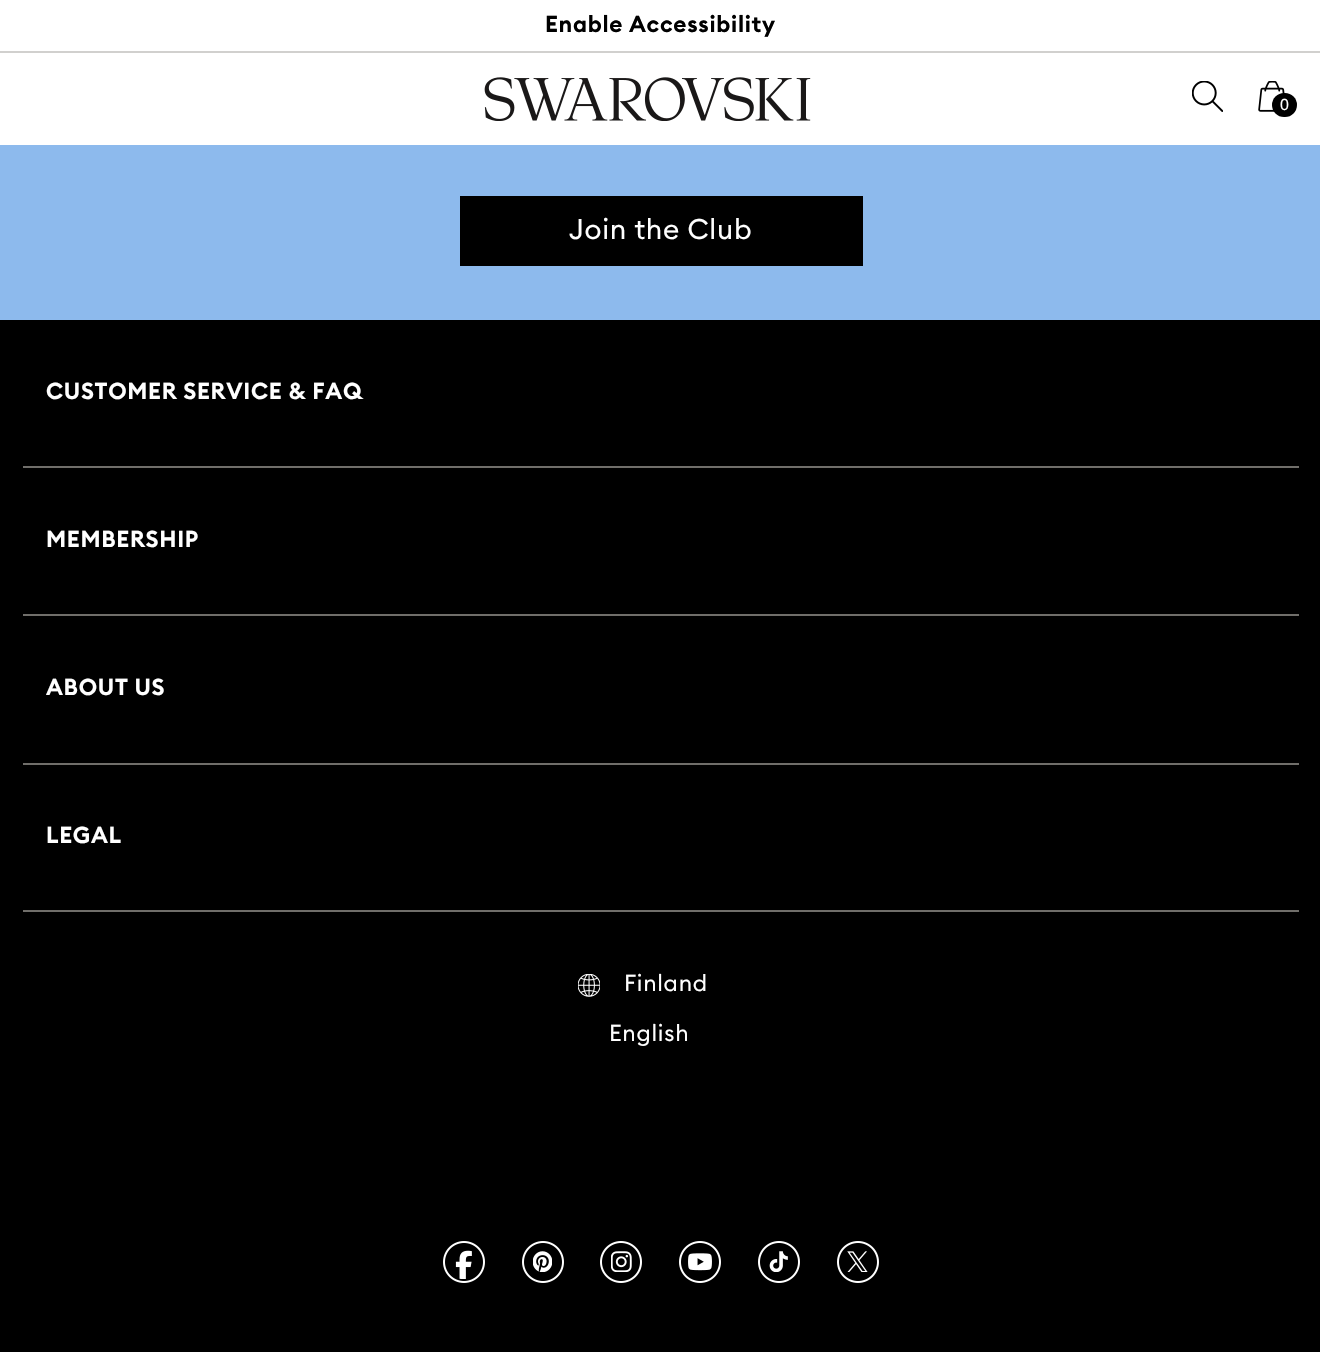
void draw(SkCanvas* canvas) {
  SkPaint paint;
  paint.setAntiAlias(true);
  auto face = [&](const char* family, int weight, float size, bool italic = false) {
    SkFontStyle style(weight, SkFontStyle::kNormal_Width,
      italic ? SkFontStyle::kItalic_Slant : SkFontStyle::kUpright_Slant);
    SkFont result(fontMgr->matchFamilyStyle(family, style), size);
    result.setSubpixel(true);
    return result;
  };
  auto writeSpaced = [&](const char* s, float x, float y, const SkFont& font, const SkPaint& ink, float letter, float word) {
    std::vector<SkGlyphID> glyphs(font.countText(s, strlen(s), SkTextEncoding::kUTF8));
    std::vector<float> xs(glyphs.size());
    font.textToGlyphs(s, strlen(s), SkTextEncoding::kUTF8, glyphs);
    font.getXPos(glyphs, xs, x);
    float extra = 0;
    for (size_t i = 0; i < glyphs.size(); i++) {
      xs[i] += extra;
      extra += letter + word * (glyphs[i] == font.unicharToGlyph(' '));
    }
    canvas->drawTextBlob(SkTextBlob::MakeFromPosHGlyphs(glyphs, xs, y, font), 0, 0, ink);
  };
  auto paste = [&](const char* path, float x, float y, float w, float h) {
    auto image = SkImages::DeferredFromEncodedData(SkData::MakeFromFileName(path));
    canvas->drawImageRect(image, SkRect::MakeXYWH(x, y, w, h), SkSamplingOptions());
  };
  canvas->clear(0xff8dbaed);
  {
    const struct { float x, y, w, h; SkColor color; } items[] = {
      {0, 0, 1320, 51, 0xffffffff},
      {0, 51, 1320, 2, 0xffd1d0ce},
      {0, 53, 1320, 92, 0xffffffff},
    };
    for (auto [x, y, w, h, color] : items) {
      paint.setColor(color);
      canvas->drawRect(SkRect::MakeXYWH(x, y, w, h), paint);
    }
  }
  paste("img/1.png", 484, 77, 327, 44);
  paste("img/2.png", 1192, 81, 31, 31);
  paste("img/3.png", 1258, 81, 27, 31);
  paint.setColor(0xff000000);
  canvas->drawRoundRect(SkRect::MakeXYWH(1272, 93, 25, 24), 12, 12, paint);
  {
    const struct { float x, y, w, h; SkColor color; } items[] = {
      {460, 196, 403, 70, 0xff000000},
      {0, 320, 1320, 1032, 0xff000000},
      {23, 466, 1276, 2, 0xff706e6a},
      {23, 614, 1276, 2, 0xff706e6a},
      {23, 763, 1276, 2, 0xff706e6a},
      {23, 910, 1276, 2, 0xff706e6a},
    };
    for (auto [x, y, w, h, color] : items) {
      paint.setColor(color);
      canvas->drawRect(SkRect::MakeXYWH(x, y, w, h), paint);
    }
  }
  paste("img/4.png", 578, 974, 22, 23);
  paste("img/5.png", 443, 1241, 42, 42);
  paste("img/6.png", 522, 1241, 42, 42);
  paste("img/7.png", 600, 1241, 42, 42);
  paste("img/8.png", 679, 1241, 42, 42);
  paste("img/9.png", 758, 1241, 42, 42);
  paste("img/10.png", 837, 1241, 42, 42);
  auto f0 = face("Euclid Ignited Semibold", 600, 22.75f);
  paint.setColor(0xff000000);
  writeSpaced("Enable Accessibility", 545, 32, f0, paint, 0.7f, 0);
  auto f1 = face("Liberation Sans", 400, 16);
  paint.setColor(0xffffffff);
  canvas->drawString("0", 1280, 110, f1, paint);
  auto f2 = face("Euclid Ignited", 400, 28);
  writeSpaced("Join the Club", 569, 239, f2, paint, 0.7f, 0);
  {
    const struct { const char* s; float x, y; } items[] = {
      {"CUSTOMER SERVICE & FAQ", 46, 399},
      {"MEMBERSHIP", 46, 547},
      {"ABOUT US", 46, 695},
      {"LEGAL", 46, 843},
    };
    for (auto [s, x, y] : items) {
      writeSpaced(s, x, y, f0, paint, 0.7f, 0);
    }
  }
  auto f3 = face("Euclid Ignited", 400, 22.75f);
  writeSpaced("Finland", 624, 991, f3, paint, 0.7f, 0);
  writeSpaced("English", 609, 1041, f3, paint, 0.7f, 0);
}
